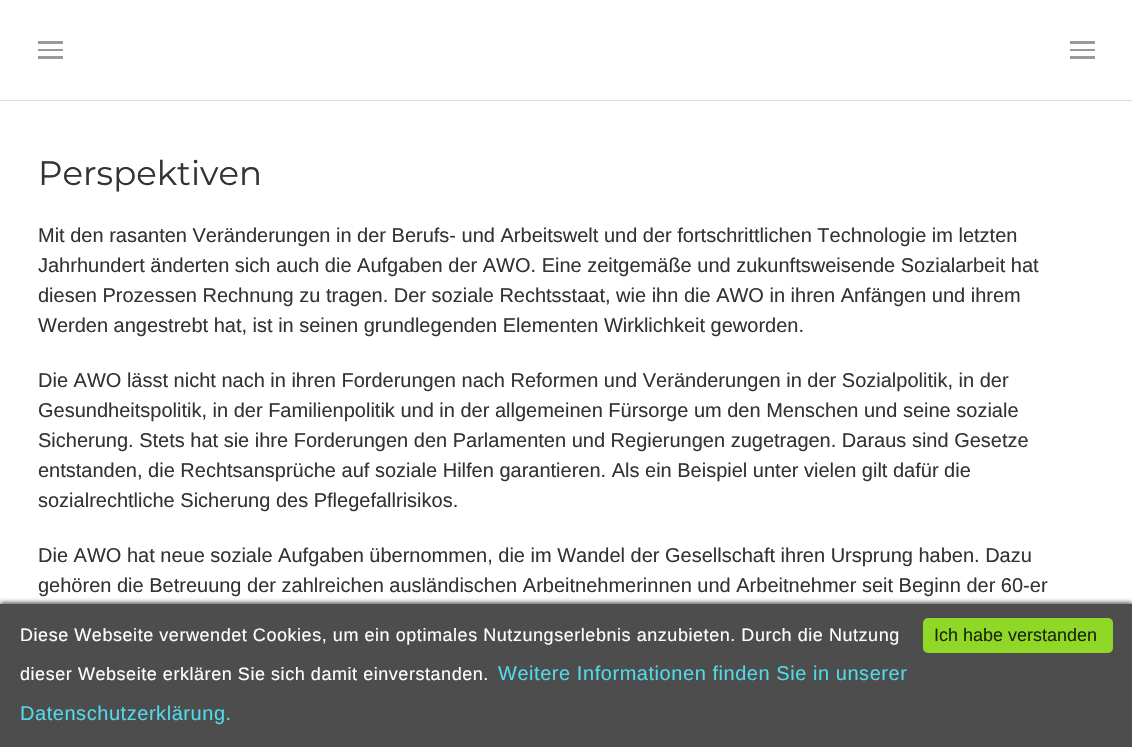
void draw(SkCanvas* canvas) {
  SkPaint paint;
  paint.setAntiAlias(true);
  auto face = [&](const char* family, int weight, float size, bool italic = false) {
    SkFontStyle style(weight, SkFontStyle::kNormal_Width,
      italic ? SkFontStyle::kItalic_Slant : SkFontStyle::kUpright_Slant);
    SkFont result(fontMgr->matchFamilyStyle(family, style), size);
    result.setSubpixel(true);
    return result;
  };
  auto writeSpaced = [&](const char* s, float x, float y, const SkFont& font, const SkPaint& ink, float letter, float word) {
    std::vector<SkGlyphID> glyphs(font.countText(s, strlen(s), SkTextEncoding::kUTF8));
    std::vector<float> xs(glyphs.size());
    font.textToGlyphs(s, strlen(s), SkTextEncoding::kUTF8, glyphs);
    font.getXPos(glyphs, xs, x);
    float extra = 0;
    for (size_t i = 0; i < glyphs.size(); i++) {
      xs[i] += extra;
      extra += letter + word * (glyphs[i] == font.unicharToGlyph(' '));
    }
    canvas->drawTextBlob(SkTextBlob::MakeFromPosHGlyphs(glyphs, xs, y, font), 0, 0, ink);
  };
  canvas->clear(0xffffffff);
  {
    const struct { float x, y, w, h; SkColor color; } items[] = {
      {0, 100, 1132, 1, 0xffdddddd},
      {38, 41, 25, 3, 0xff999999},
      {38, 49, 25, 2, 0xff999999},
      {38, 56, 25, 3, 0xff999999},
      {1070, 41, 25, 3, 0xff999999},
      {1070, 49, 25, 2, 0xff999999},
      {1070, 56, 25, 3, 0xff999999},
    };
    for (auto [x, y, w, h, color] : items) {
      paint.setColor(color);
      canvas->drawRect(SkRect::MakeXYWH(x, y, w, h), paint);
    }
  }
  paint.setColor(0xff363535);
  paint.setMaskFilter(SkMaskFilter::MakeBlur(kNormal_SkBlurStyle, 2.5f));
  canvas->drawRect(SkRect::MakeXYWH(0, 603, 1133, 143), paint);
  paint.setMaskFilter(nullptr);
  paint.setColor(0xff4e4d4d);
  canvas->drawRect(SkRect::MakeXYWH(0, 604, 1132, 143), paint);
  paint.setColor(0xff90d827);
  canvas->drawRoundRect(SkRect::MakeXYWH(923, 618, 190, 35), 5, 5, paint);
  auto f0 = face("Montserrat", 400, 34);
  paint.setColor(0xff333333);
  canvas->drawString("Perspektiven", 38, 185, f0, paint);
  auto f1 = face("Liberation Sans", 400, 20);
  {
    const struct { const char* s; float x, y; } items[] = {
      {"Mit den rasanten Veränderungen in der Berufs- und Arbeitswelt und der fortschrittlichen Technologie im letzten", 38, 242},
      {"Jahrhundert änderten sich auch die Aufgaben der AWO. Eine zeitgemäße und zukunftsweisende Sozialarbeit hat", 38, 272},
      {"diesen Prozessen Rechnung zu tragen. Der soziale Rechtsstaat, wie ihn die AWO in ihren Anfängen und ihrem", 38, 302},
      {"Werden angestrebt hat, ist in seinen grundlegenden Elementen Wirklichkeit geworden.", 38, 332},
      {"Die AWO lässt nicht nach in ihren Forderungen nach Reformen und Veränderungen in der Sozialpolitik, in der", 38, 387},
      {"Gesundheitspolitik, in der Familienpolitik und in der allgemeinen Fürsorge um den Menschen und seine soziale", 38, 417},
      {"Sicherung. Stets hat sie ihre Forderungen den Parlamenten und Regierungen zugetragen. Daraus sind Gesetze", 38, 447},
      {"entstanden, die Rechtsansprüche auf soziale Hilfen garantieren. Als ein Beispiel unter vielen gilt dafür die", 38, 477},
      {"sozialrechtliche Sicherung des Pflegefallrisikos.", 38, 507},
      {"Die AWO hat neue soziale Aufgaben übernommen, die im Wandel der Gesellschaft ihren Ursprung haben. Dazu", 38, 562},
      {"gehören die Betreuung der zahlreichen ausländischen Arbeitnehmerinnen und Arbeitnehmer seit Beginn der 60-er", 38, 592},
    };
    for (auto [s, x, y] : items) {
      canvas->drawString(s, x, y, f1, paint);
    }
  }
  auto f2 = face("Liberation Sans", 400, 18);
  paint.setColor(0xffffffff);
  writeSpaced("Diese Webseite verwendet Cookies, um ein optimales Nutzungserlebnis anzubieten. Durch die Nutzung", 20, 641, f2, paint, 0.55f, 0);
  writeSpaced("dieser Webseite erklären Sie sich damit einverstanden.", 20, 680, f2, paint, 0.55f, 0);
  paint.setColor(0xff52daea);
  writeSpaced("Weitere Informationen finden Sie in unserer", 498, 680, f1, paint, 0.55f, 0);
  writeSpaced("Datenschutzerklärung.", 20, 720, f1, paint, 0.55f, 0);
  paint.setColor(0xff1d290a);
  canvas->drawString("Ich habe verstanden", 934, 641, f2, paint);
}
